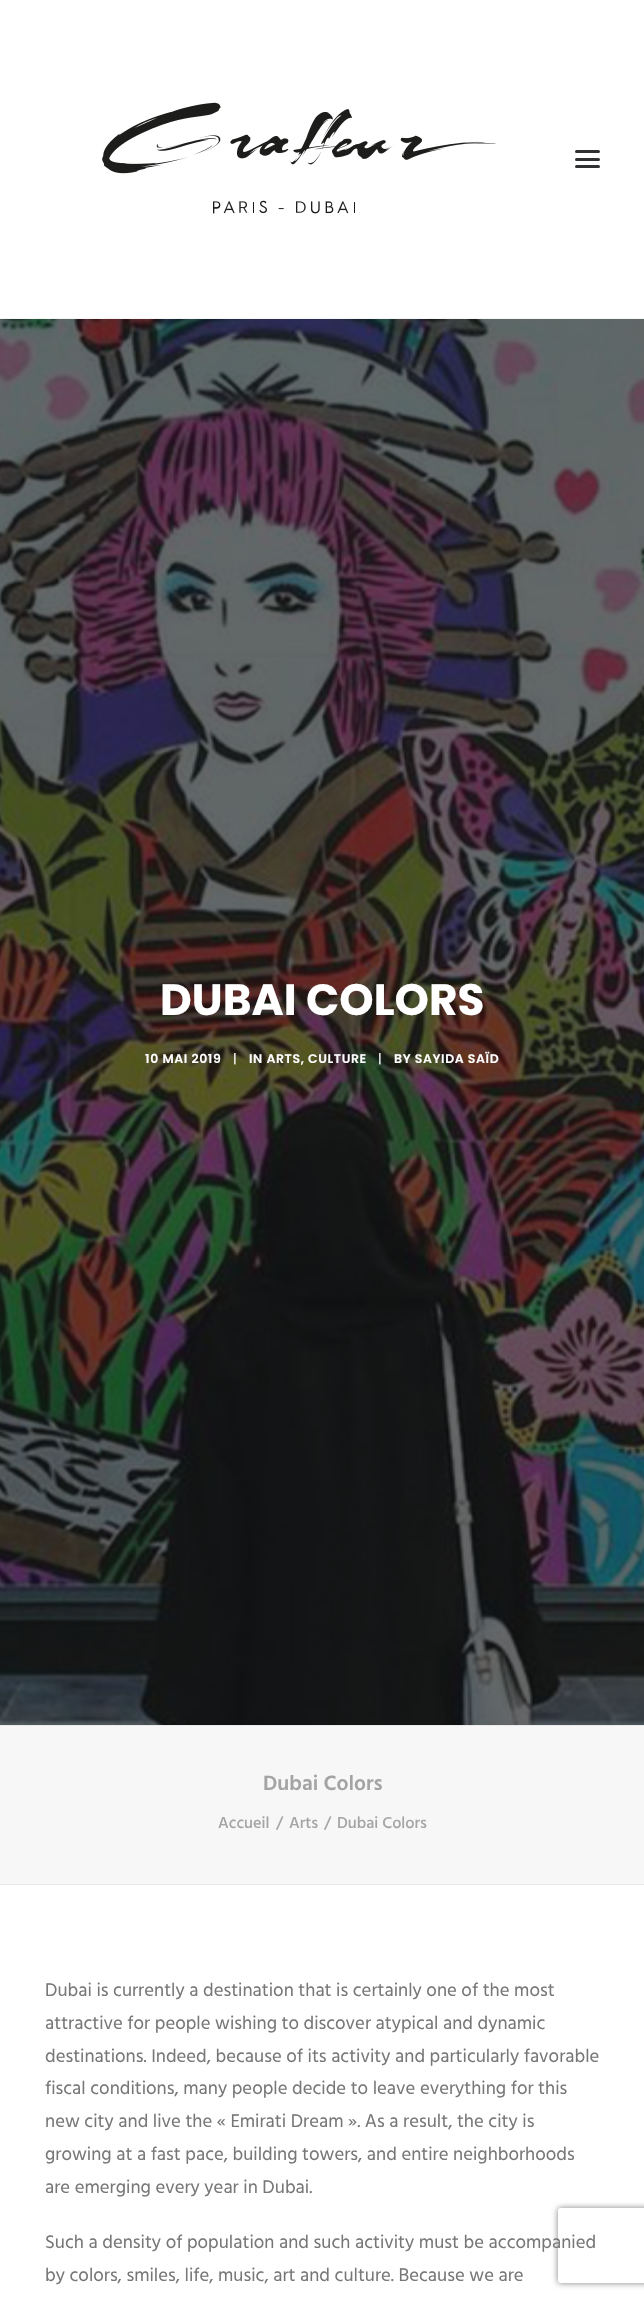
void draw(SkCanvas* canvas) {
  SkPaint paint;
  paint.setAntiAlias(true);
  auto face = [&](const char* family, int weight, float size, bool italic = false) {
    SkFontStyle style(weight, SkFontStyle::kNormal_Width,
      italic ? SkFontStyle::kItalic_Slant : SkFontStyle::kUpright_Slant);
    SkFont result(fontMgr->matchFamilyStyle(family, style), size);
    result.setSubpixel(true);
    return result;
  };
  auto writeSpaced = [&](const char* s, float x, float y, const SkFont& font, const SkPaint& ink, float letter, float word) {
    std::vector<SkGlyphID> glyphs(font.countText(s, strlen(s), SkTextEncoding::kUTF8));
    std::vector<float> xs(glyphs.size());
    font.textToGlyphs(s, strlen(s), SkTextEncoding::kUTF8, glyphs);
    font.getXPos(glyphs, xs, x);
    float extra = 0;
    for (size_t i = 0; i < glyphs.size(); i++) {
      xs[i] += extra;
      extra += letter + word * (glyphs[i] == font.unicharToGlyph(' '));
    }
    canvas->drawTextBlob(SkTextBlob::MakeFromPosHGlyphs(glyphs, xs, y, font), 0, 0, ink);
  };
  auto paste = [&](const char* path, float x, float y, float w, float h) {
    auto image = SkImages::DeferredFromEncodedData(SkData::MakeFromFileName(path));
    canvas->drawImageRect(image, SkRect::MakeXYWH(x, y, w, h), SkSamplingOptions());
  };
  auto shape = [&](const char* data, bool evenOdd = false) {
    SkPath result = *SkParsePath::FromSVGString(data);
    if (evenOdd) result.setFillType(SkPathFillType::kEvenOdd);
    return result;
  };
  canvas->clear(0xffffffff);
  paint.setColor(0xfff5f5f5);
  canvas->drawRect(SkRect::MakeXYWH(0, 318, 644, 1), paint);
  paste("img/1.png", 102, 102, 394, 112);
  paint.setColor(0xff303133);
  canvas->drawRoundRect(SkRect::MakeXYWH(575, 158, 25, 3), 1.5f, 1.5f, paint);
  canvas->drawRoundRect(SkRect::MakeXYWH(575, 150, 25, 3), 1.5f, 1.5f, paint);
  canvas->drawRoundRect(SkRect::MakeXYWH(575, 165, 25, 3), 1.5f, 1.5f, paint);
  paste("img/2.png", 0, 319, 644, 1406);
  {
    const struct { float x, y, w, h; SkColor color; } items[] = {
      {0, 1726, 644, 158, 0xfff7f7f7},
      {0, 1725, 644, 1, 0xffeaeaea},
      {0, 1884, 644, 1, 0xffeaeaea},
    };
    for (auto [x, y, w, h, color] : items) {
      paint.setColor(color);
      canvas->drawRect(SkRect::MakeXYWH(x, y, w, h), paint);
    }
  }
  canvas->save();
  canvas->clipPath(shape("M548 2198H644V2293H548ZM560.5 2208H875.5C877 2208 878 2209 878 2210.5V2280.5C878 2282 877 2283 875.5 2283H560.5C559 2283 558 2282 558 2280.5V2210.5C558 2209 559 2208 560.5 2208Z", true), true);
  paint.setColor(0xff808080);
  paint.setMaskFilter(SkMaskFilter::MakeBlur(kNormal_SkBlurStyle, 3));
  canvas->drawRoundRect(SkRect::MakeXYWH(558, 2208, 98, 75), 2.5f, 2.5f, paint);
  paint.setMaskFilter(nullptr);
  canvas->restore();
  auto f0 = face("Poppins", 700, 43.75f);
  paint.setColor(0xffffffff);
  canvas->drawString("DUBAI COLORS", 160, 1015, f0, paint);
  auto f1 = face("Poppins", 600, 12.5f);
  writeSpaced("10 MAI 2019", 145, 1063, f1, paint, 0.6f, 0);
  auto f2 = face("Poppins", 400, 12.5f);
  writeSpaced("|", 233, 1063, f2, paint, 0.6f, 0);
  writeSpaced("IN ARTS, CULTURE", 249, 1063, f1, paint, 0.6f, 0);
  writeSpaced("|", 378, 1063, f2, paint, 0.6f, 0);
  writeSpaced("BY SAYIDA SAÏD", 394, 1063, f1, paint, 0.6f, 0);
  auto f3 = face("Hind", 600, 21.25f);
  paint.setColor(0xffa4a4a4);
  canvas->drawString("Dubai Colors", 263, 1790, f3, paint);
  auto f4 = face("Hind", 500, 16.25f);
  {
    const struct { const char* s; float x, y; } items[] = {
      {"Accueil", 218, 1828},
      {"/", 276, 1828},
      {"Arts", 289, 1828},
      {"/", 324, 1828},
      {"Dubai Colors", 337, 1828},
    };
    for (auto [s, x, y] : items) {
      canvas->drawString(s, x, y, f4, paint);
    }
  }
  auto f5 = face("Hind", 400, 18.75f);
  paint.setColor(0xff777777);
  {
    const struct { const char* s; float x, y; } items[] = {
      {"Dubai is currently a destination that is certainly one of the most", 45, 1996},
      {"attractive for people wishing to discover atypical and dynamic", 45, 2029},
      {"destinations. Indeed, because of its activity and particularly favorable", 45, 2062},
      {"fiscal conditions, many people decide to leave everything for this", 45, 2094},
      {"new city and live the « Emirati Dream ». As a result, the city is", 45, 2127},
      {"growing at a fast pace, building towers, and entire neighborhoods", 45, 2160},
      {"are emerging every year in Dubai.", 45, 2193},
      {"Such a density of population and such activity must be accompanied", 45, 2248},
      {"by colors, smiles, life, music, art and culture. Because we are", 45, 2281},
    };
    for (auto [s, x, y] : items) {
      canvas->drawString(s, x, y, f5, paint);
    }
  }
}
